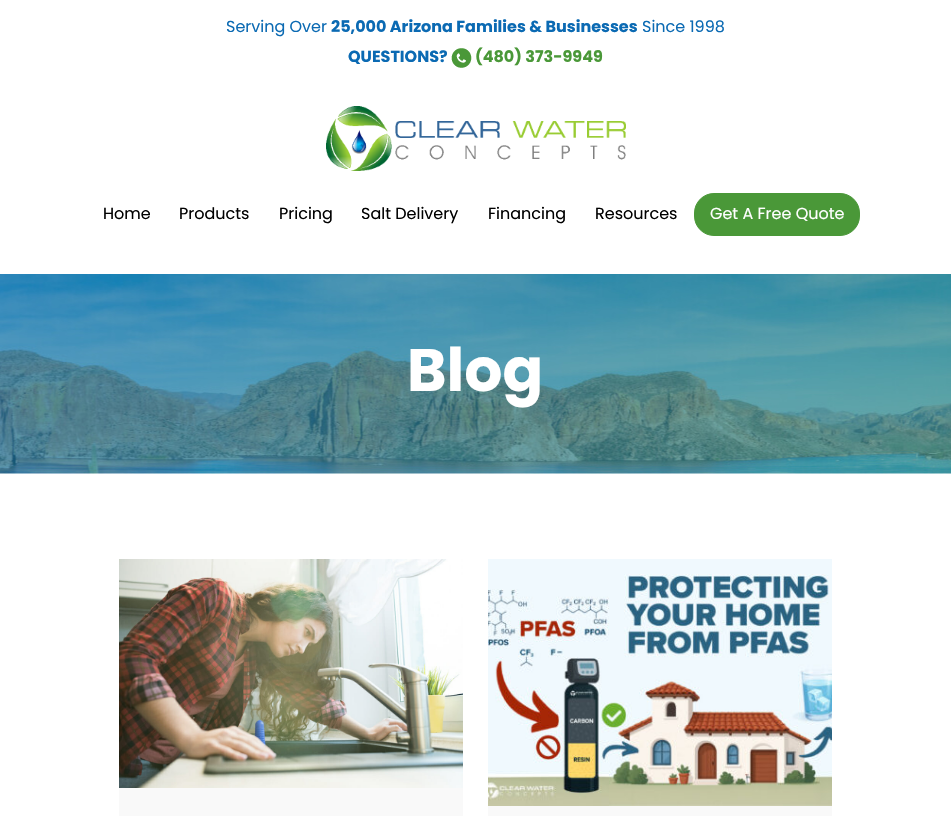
void draw(SkCanvas* canvas) {
  SkPaint paint;
  paint.setAntiAlias(true);
  auto face = [&](const char* family, int weight, float size, bool italic = false) {
    SkFontStyle style(weight, SkFontStyle::kNormal_Width,
      italic ? SkFontStyle::kItalic_Slant : SkFontStyle::kUpright_Slant);
    SkFont result(fontMgr->matchFamilyStyle(family, style), size);
    result.setSubpixel(true);
    return result;
  };
  auto paste = [&](const char* path, float x, float y, float w, float h) {
    auto image = SkImages::DeferredFromEncodedData(SkData::MakeFromFileName(path));
    canvas->drawImageRect(image, SkRect::MakeXYWH(x, y, w, h), SkSamplingOptions());
  };
  canvas->clear(0xffffffff);
  paste("img/1.png", 451, 48, 21, 20);
  paste("img/2.png", 326, 106, 300, 65);
  paint.setColor(0xff4a9838);
  canvas->drawRoundRect(SkRect::MakeXYWH(694.5f, 193.5f, 165, 42), 19.5f, 19.5f, paint);
  paint.setStroke(true);
  paint.setStrokeWidth(1);
  canvas->drawRoundRect(SkRect::MakeXYWH(694.5f, 193.5f, 165, 42), 19.5f, 19.5f, paint);
  paste("img/3.png", 0, 274, 951, 200);
  paste("img/4.png", 119, 559, 344, 229);
  paint.setStroke(false);
  paint.setColor(0xfff9f9f9);
  canvas->drawRect(SkRect::MakeXYWH(119, 788, 344, 28), paint);
  paste("img/5.png", 488, 559, 344, 247);
  canvas->drawRect(SkRect::MakeXYWH(488, 806, 344, 10), paint);
  auto f0 = face("Poppins", 400, 16);
  paint.setColor(0xff0b6ab3);
  canvas->drawString("Serving Over", 226, 32, f0, paint);
  auto f1 = face("Poppins", 700, 16);
  canvas->drawString("25,000 Arizona Families & Businesses", 331, 32, f1, paint);
  canvas->drawString("Since 1998", 642, 32, f0, paint);
  canvas->drawString("QUESTIONS?", 348, 62, f1, paint);
  paint.setColor(0xff4a9838);
  canvas->drawString("(480) 373-9949", 475, 62, f1, paint);
  paint.setColor(0xff000000);
  {
    const struct { const char* s; float x, y; } items[] = {
      {"Home", 103, 219},
      {"Products", 179, 219},
      {"Pricing", 279, 219},
      {"Salt Delivery", 361, 219},
      {"Financing", 488, 219},
      {"Resources", 595, 219},
    };
    for (auto [s, x, y] : items) {
      canvas->drawString(s, x, y, f0, paint);
    }
  }
  paint.setColor(0xffffffff);
  canvas->drawString("Get A Free Quote", 710, 219, f0, paint);
  auto f2 = face("Poppins", 700, 60);
  canvas->drawString("Blog", 407, 391, f2, paint);
}
